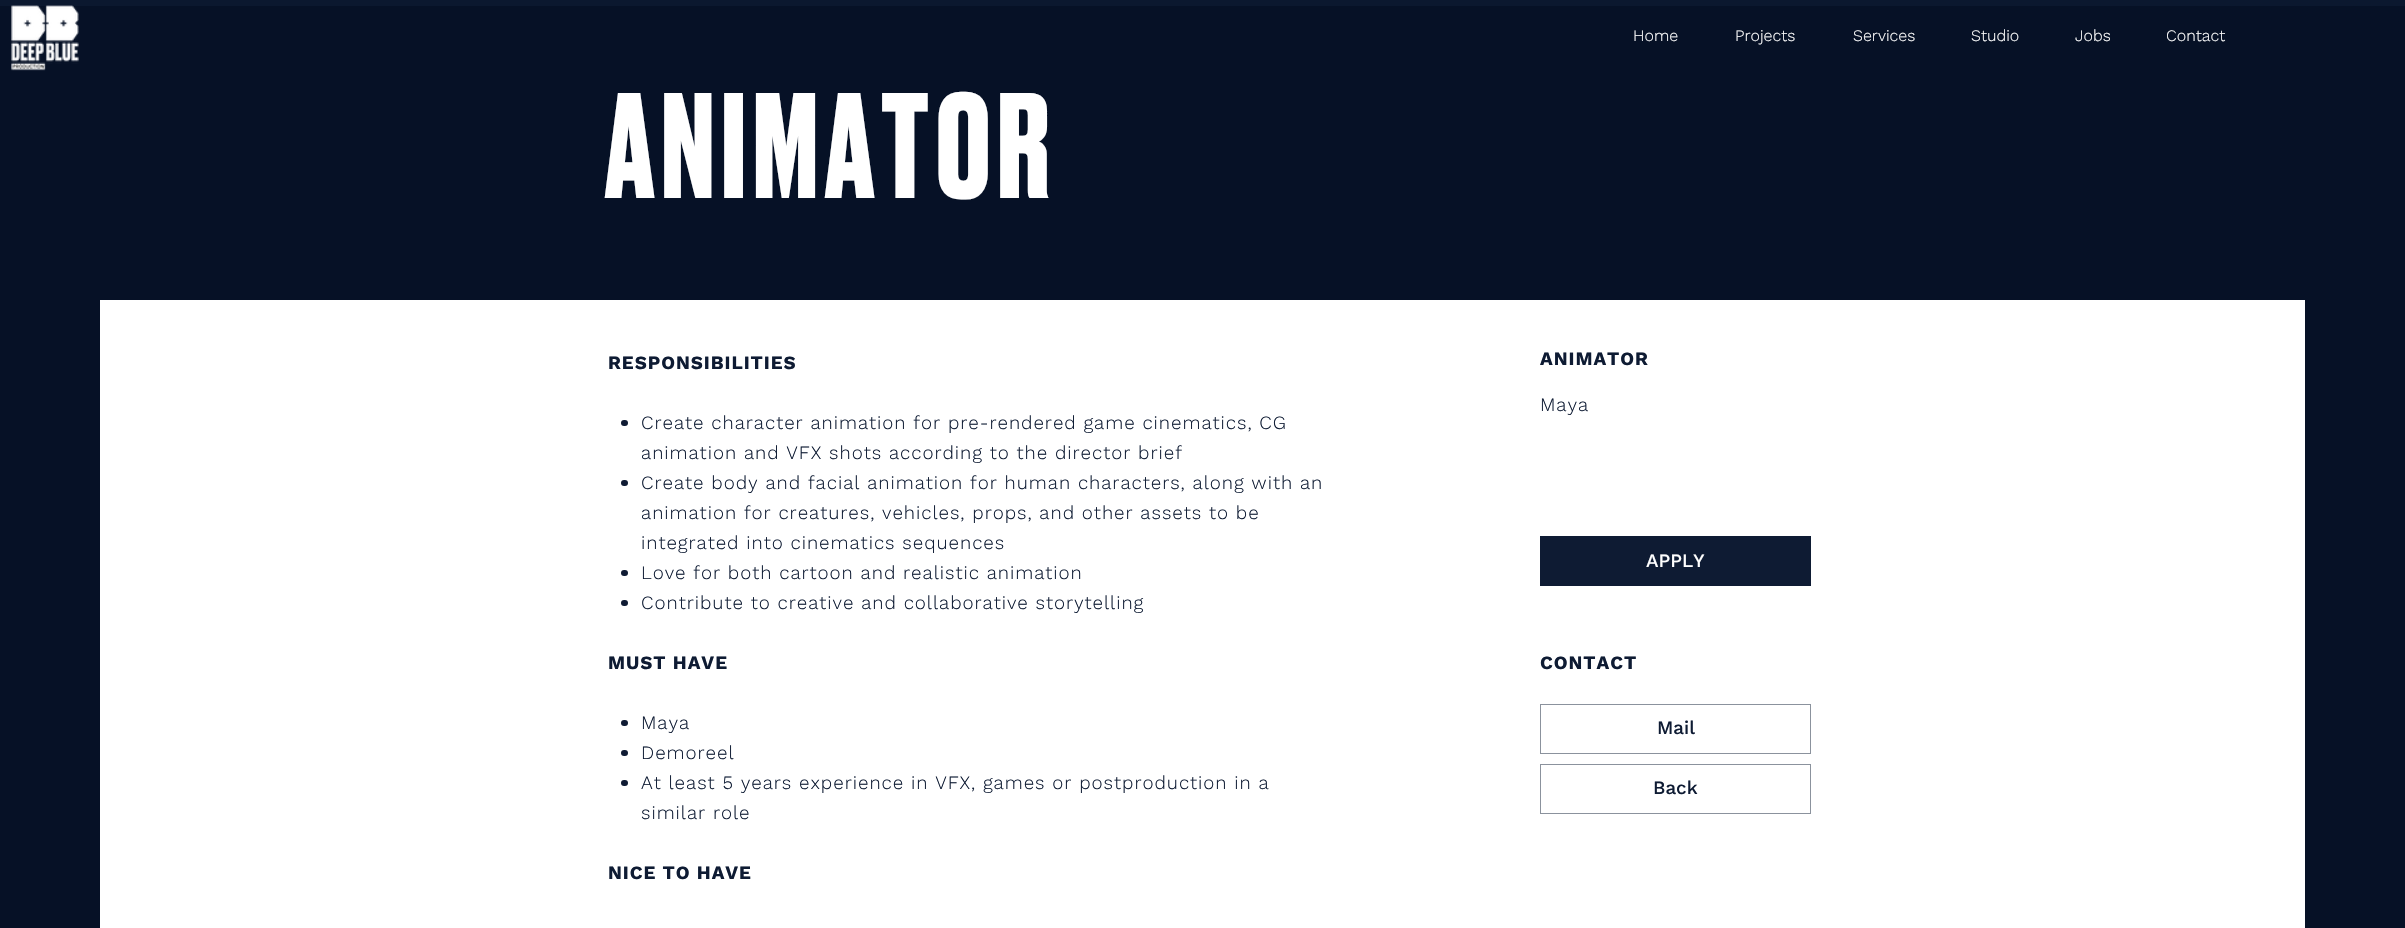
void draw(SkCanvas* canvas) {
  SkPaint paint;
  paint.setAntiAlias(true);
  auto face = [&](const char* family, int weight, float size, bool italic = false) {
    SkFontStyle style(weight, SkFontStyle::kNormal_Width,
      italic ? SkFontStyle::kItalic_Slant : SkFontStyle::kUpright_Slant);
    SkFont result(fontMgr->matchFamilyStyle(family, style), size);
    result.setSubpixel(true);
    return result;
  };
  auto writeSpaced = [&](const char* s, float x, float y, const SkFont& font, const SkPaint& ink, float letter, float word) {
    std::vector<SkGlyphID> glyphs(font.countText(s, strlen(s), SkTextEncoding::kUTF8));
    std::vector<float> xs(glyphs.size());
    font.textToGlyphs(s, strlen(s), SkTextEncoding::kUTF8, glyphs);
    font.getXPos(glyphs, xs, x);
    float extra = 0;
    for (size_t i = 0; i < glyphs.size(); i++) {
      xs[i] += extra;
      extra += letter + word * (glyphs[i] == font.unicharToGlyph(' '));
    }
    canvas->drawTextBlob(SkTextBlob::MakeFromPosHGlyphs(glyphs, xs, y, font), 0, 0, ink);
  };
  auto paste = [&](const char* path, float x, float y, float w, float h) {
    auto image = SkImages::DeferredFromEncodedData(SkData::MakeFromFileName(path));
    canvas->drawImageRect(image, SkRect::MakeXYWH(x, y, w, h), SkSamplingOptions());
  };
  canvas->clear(0xff061126);
  paint.setColor(0xff0b182f);
  canvas->drawRect(SkRect::MakeXYWH(0, 0, 2405, 6), paint);
  paste("img/1.png", 11, 5, 68, 66);
  paint.setColor(0xffffffff);
  canvas->drawRect(SkRect::MakeXYWH(100, 300, 2205, 628), paint);
  paint.setColor(0xff0e1b33);
  canvas->drawRoundRect(SkRect::MakeXYWH(621, 420, 7, 6), 3, 3, paint);
  canvas->drawRoundRect(SkRect::MakeXYWH(621, 480, 7, 6), 3, 3, paint);
  canvas->drawRoundRect(SkRect::MakeXYWH(621, 570, 7, 6), 3, 3, paint);
  canvas->drawRoundRect(SkRect::MakeXYWH(621, 600, 7, 6), 3, 3, paint);
  canvas->drawRoundRect(SkRect::MakeXYWH(621, 720, 7, 6), 3, 3, paint);
  canvas->drawRoundRect(SkRect::MakeXYWH(621, 750, 7, 6), 3, 3, paint);
  canvas->drawRoundRect(SkRect::MakeXYWH(621, 780, 7, 6), 3, 3, paint);
  canvas->drawRect(SkRect::MakeXYWH(1540, 536, 271, 50), paint);
  paint.setStroke(true);
  paint.setStrokeWidth(1);
  paint.setColor(0xff8b929d);
  canvas->drawRect(SkRect::MakeXYWH(1540.5f, 704.5f, 270, 49), paint);
  canvas->drawRect(SkRect::MakeXYWH(1540.5f, 764.5f, 270, 49), paint);
  auto f0 = face("Work Sans", 300, 16);
  paint.setStroke(false);
  paint.setColor(0xffffffff);
  {
    const struct { const char* s; float x, y; } items[] = {
      {"Home", 1633, 41},
      {"Projects", 1735, 41},
      {"Services", 1853, 41},
      {"Studio", 1971, 41},
      {"Jobs", 2075, 41},
      {"Contact", 2166, 41},
    };
    for (auto [s, x, y] : items) {
      canvas->drawString(s, x, y, f0, paint);
    }
  }
  auto f1 = face("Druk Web", 700, 141);
  writeSpaced("ANIMATOR", 605, 198, f1, paint, 7, 0);
  auto f2 = face("Work Sans", 700, 18.75f);
  paint.setColor(0xff0e1b33);
  writeSpaced("RESPONSIBILITIES", 608, 369, f2, paint, 0.95f, 0);
  auto f3 = face("Work Sans", 300, 18.75f);
  {
    const struct { const char* s; float x, y; } items[] = {
      {"Create character animation for pre-rendered game cinematics, CG", 641, 429},
      {"animation and VFX shots according to the director brief", 641, 459},
      {"Create body and facial animation for human characters, along with an", 641, 489},
      {"animation for creatures, vehicles, props, and other assets to be", 641, 519},
      {"integrated into cinematics sequences", 641, 549},
      {"Love for both cartoon and realistic animation", 641, 579},
      {"Contribute to creative and collaborative storytelling", 641, 609},
    };
    for (auto [s, x, y] : items) {
      writeSpaced(s, x, y, f3, paint, 0.95f, 0);
    }
  }
  writeSpaced("MUST HAVE", 608, 669, f2, paint, 0.95f, 0);
  {
    const struct { const char* s; float x, y; } items[] = {
      {"Maya", 641, 729},
      {"Demoreel", 641, 759},
      {"At least 5 years experience in VFX, games or postproduction in a", 641, 789},
      {"similar role", 641, 819},
    };
    for (auto [s, x, y] : items) {
      writeSpaced(s, x, y, f3, paint, 0.95f, 0);
    }
  }
  writeSpaced("NICE TO HAVE", 608, 879, f2, paint, 0.95f, 0);
  writeSpaced("ANIMATOR", 1540, 365, f2, paint, 0.95f, 0);
  writeSpaced("Maya", 1540, 411, f3, paint, 0.95f, 0);
  auto f4 = face("Work Sans", 500, 18.75f);
  paint.setColor(0xffffffff);
  canvas->drawString("APPLY", 1646, 567, f4, paint);
  paint.setColor(0xff0e1b33);
  writeSpaced("CONTACT", 1540, 669, f2, paint, 0.95f, 0);
  canvas->drawString("Mail", 1657, 734, f4, paint);
  canvas->drawString("Back", 1653, 794, f4, paint);
}
